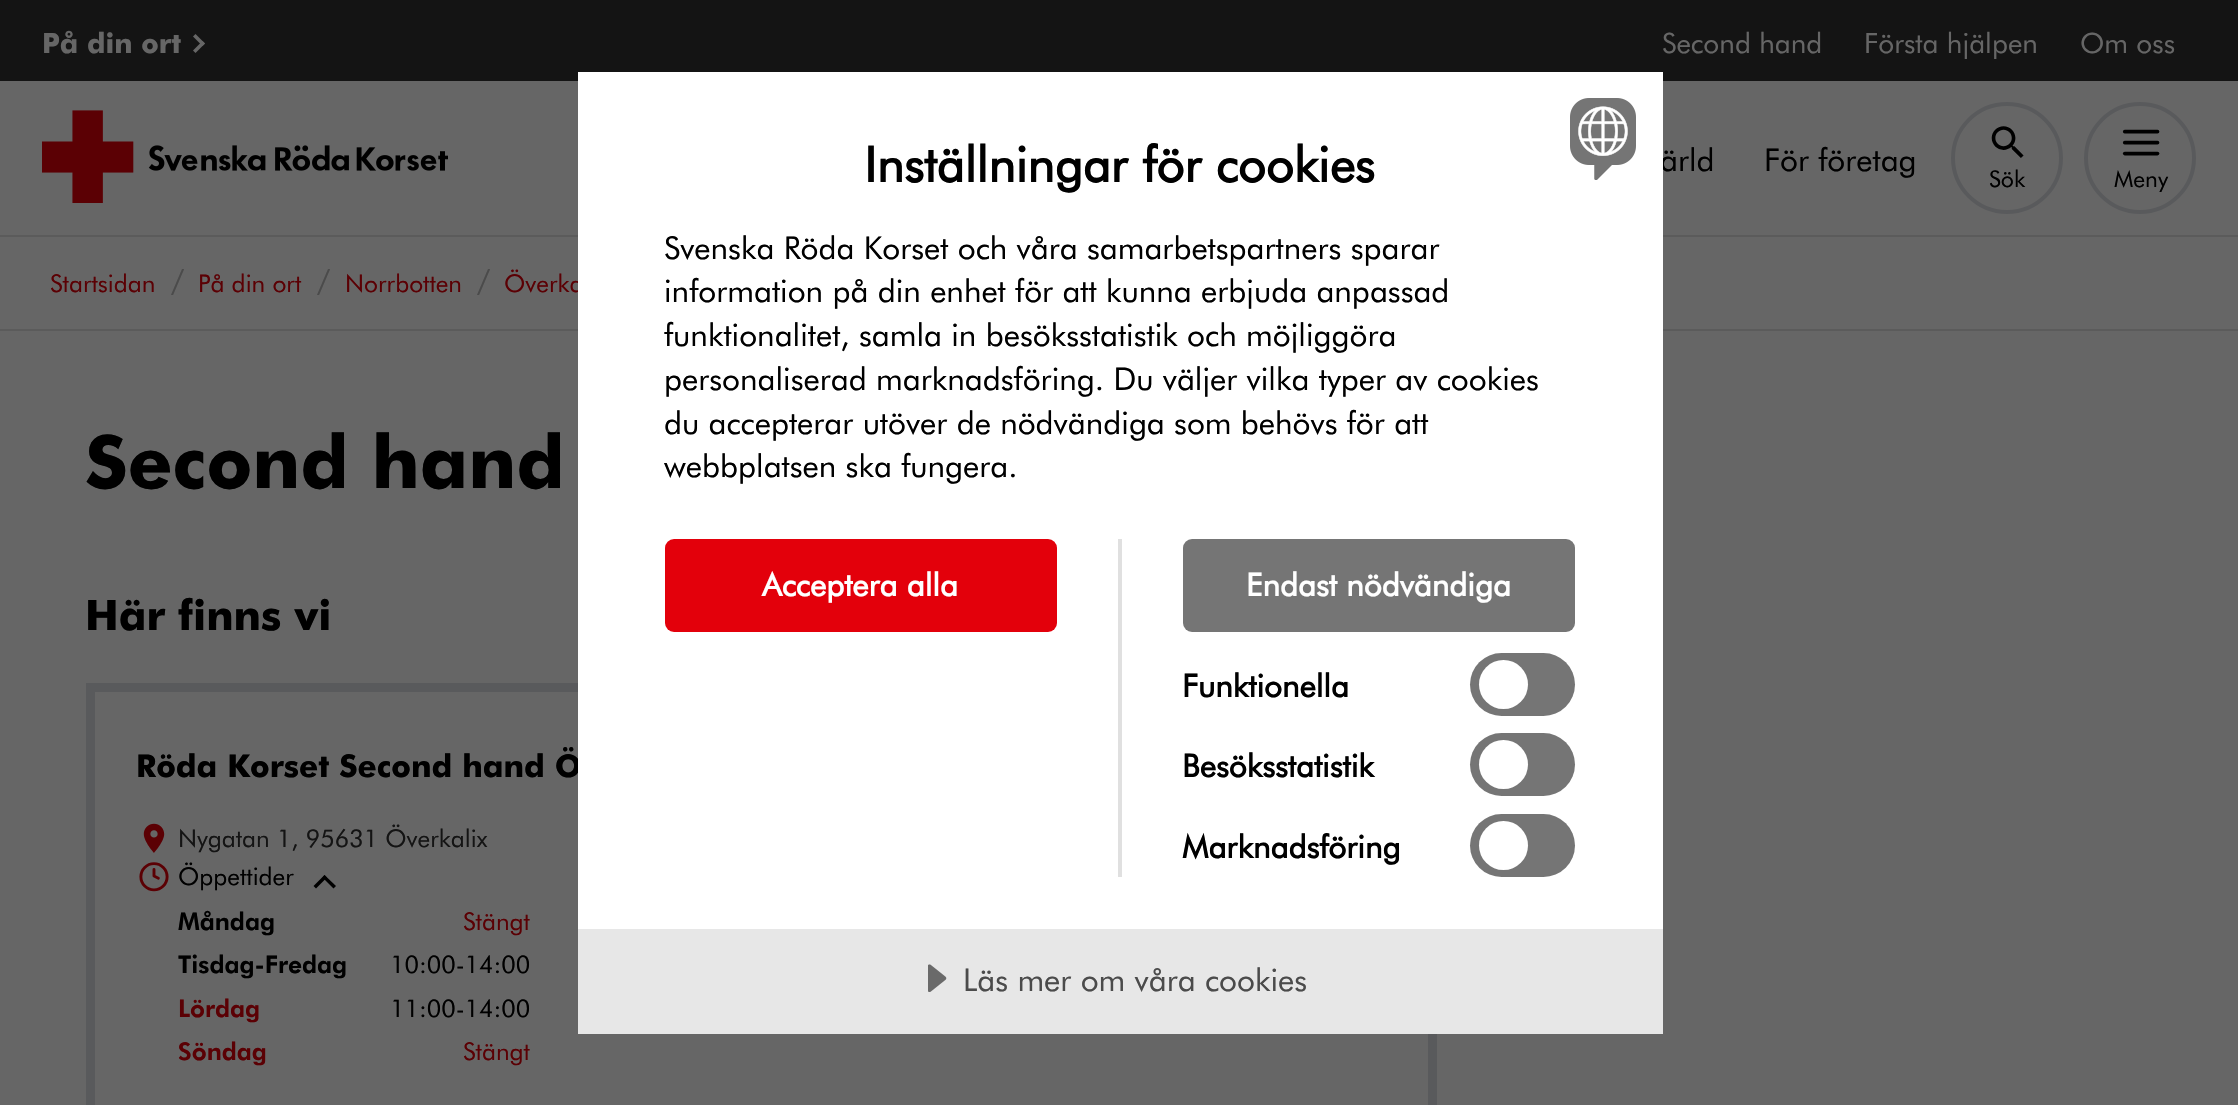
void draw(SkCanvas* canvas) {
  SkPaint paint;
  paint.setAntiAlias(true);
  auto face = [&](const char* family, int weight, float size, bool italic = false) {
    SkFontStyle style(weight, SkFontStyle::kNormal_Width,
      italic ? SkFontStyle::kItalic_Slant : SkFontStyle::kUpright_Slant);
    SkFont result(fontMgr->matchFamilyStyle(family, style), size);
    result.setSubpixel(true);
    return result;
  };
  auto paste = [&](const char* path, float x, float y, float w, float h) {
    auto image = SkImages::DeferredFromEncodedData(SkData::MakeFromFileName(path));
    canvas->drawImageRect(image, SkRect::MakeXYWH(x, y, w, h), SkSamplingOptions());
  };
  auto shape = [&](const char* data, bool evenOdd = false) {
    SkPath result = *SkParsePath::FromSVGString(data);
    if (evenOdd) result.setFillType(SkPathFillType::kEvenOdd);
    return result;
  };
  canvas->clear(0xff666666);
  paint.setColor(0xff141414);
  canvas->drawRect(SkRect::MakeXYWH(0, 0, 2238, 81), paint);
  paint.setColor(0xff666666);
  canvas->drawPath(shape("M195.5 34L205 43.5L202.5 46L193 36.5Z"), paint);
  canvas->drawPath(shape("M202.5 41L205 43.5L195.5 53L193 50.5Z"), paint);
  paste("img/1.png", 42, 110, 406, 93);
  paint.setStroke(true);
  paint.setStrokeWidth(4);
  paint.setColor(0xff595a5c);
  canvas->drawCircle(2007, 158, 54, paint);
  paste("img/2.png", 1991, 126, 33, 32);
  canvas->drawCircle(2140, 158, 54, paint);
  paste("img/3.png", 2122, 129, 38, 27);
  paint.setStroke(false);
  paint.setColor(0xff5b5b5b);
  canvas->drawRect(SkRect::MakeXYWH(0, 235, 2238, 2), paint);
  canvas->drawRect(SkRect::MakeXYWH(0, 329, 2238, 2), paint);
  paint.setStroke(true);
  paint.setStrokeWidth(9);
  paint.setColor(0xff595a5c);
  canvas->drawRect(SkRect::MakeXYWH(90.5f, 687.5f, 1342, 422), paint);
  paste("img/4.png", 143, 823, 22, 30);
  paste("img/5.png", 139, 862, 30, 30);
  paint.setStroke(false);
  paint.setColor(0xff000000);
  canvas->drawPath(shape("M333.5 888.5L336 886L324.5 875L322.5 877.5Z"), paint);
  canvas->drawPath(shape("M316 888.5L327 877.5L324.5 875L313.5 886Z"), paint);
  paint.setColor(0xffe7e7e7);
  canvas->drawRect(SkRect::MakeXYWH(578, 929, 1085, 105), paint);
  paste("img/7.png", 928, 964, 19, 28);
  auto f0 = face("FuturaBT", 900, 28);
  paint.setColor(0xff666666);
  canvas->drawString("På din ort", 42, 53, f0, paint);
  auto f1 = face("FuturaBT", 400, 28);
  {
    const struct { const char* s; float x, y; } items[] = {
      {"Second hand", 1662, 53},
      {"Första hjälpen", 1864, 53},
      {"Om oss", 2080, 53},
    };
    for (auto [s, x, y] : items) {
      canvas->drawString(s, x, y, f1, paint);
    }
  }
  auto f2 = face("FuturaBT", 400, 31.5f);
  paint.setColor(0xff000000);
  canvas->drawString("ärld", 1660, 171, f2, paint);
  canvas->drawString("För företag", 1764, 171, f2, paint);
  auto f3 = face("FuturaBT", 400, 23);
  canvas->drawString("Sök", 1989, 187, f3, paint);
  canvas->drawString("Meny", 2114, 187, f3, paint);
  auto f4 = face("FuturaBT", 400, 24.5f);
  paint.setColor(0xff5b0004);
  canvas->drawString("Startsidan", 50, 292, f4, paint);
  paint.setColor(0xff4b4b4b);
  canvas->drawString("/", 171, 292, f2, paint);
  paint.setColor(0xff5b0004);
  canvas->drawString("På din ort", 198, 292, f4, paint);
  paint.setColor(0xff4b4b4b);
  canvas->drawString("/", 317, 292, f2, paint);
  paint.setColor(0xff5b0004);
  canvas->drawString("Norrbotten", 345, 292, f4, paint);
  paint.setColor(0xff4b4b4b);
  canvas->drawString("/", 477, 292, f2, paint);
  paint.setColor(0xff5b0004);
  canvas->drawString("Överka", 504, 292, f4, paint);
  auto f5 = face("FuturaBT", 900, 73.5f);
  paint.setColor(0xff000000);
  canvas->drawString("Second hand", 85, 488, f5, paint);
  auto f6 = face("FuturaBT", 900, 42);
  canvas->drawString("Här finns vi", 85, 630, f6, paint);
  auto f7 = face("FuturaBT", 900, 31.5f);
  canvas->drawString("Röda Korset Second hand Ö", 136, 777, f7, paint);
  paint.setColor(0xff141414);
  canvas->drawString("Nygatan 1, 95631 Överkalix", 178, 847, f4, paint);
  paint.setColor(0xff000000);
  canvas->drawString("Öppettider", 178, 885, f4, paint);
  auto f8 = face("FuturaBT", 700, 24.5f);
  canvas->drawString("Måndag", 178, 930, f8, paint);
  paint.setColor(0xff5b0004);
  canvas->drawString("Stängt", 463, 930, f4, paint);
  paint.setColor(0xff000000);
  canvas->drawString("Tisdag-Fredag", 178, 973, f8, paint);
  canvas->drawString("10:00-14:00", 390, 973, f4, paint);
  paint.setColor(0xff5b0004);
  canvas->drawString("Lördag", 178, 1017, f8, paint);
  paint.setColor(0xff000000);
  canvas->drawString("11:00-14:00", 390, 1017, f4, paint);
  paint.setColor(0xff5b0004);
  canvas->drawString("Söndag", 178, 1060, f8, paint);
  canvas->drawString("Stängt", 463, 1060, f4, paint);
  paint.setColor(0xffffffff);
  canvas->drawRect(SkRect::MakeXYWH(578, 72, 1085, 857), paint);
  auto f9 = face("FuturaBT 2", 700, 49);
  paint.setColor(0xff000000);
  canvas->drawString("Inställningar för cookies", 864, 182, f9, paint);
  {
    const struct { const char* s; float x, y; } items[] = {
      {"Svenska Röda Korset och våra samarbetspartners sparar", 664, 259},
      {"information på din enhet för att kunna erbjuda anpassad", 664, 302},
      {"funktionalitet, samla in besöksstatistik och möjliggöra", 664, 346},
      {"personaliserad marknadsföring. Du väljer vilka typer av cookies", 664, 390},
      {"du accepterar utöver de nödvändiga som behövs för att", 664, 434},
      {"webbplatsen ska fungera.", 664, 477},
    };
    for (auto [s, x, y] : items) {
      canvas->drawString(s, x, y, f2, paint);
    }
  }
  paint.setColor(0xffe0e0e0);
  canvas->drawRect(SkRect::MakeXYWH(1118, 539, 4, 338), paint);
  paint.setColor(0xffe3000b);
  canvas->drawRoundRect(SkRect::MakeXYWH(665, 539, 392, 93), 9, 9, paint);
  auto f10 = face("FuturaBT 2", 700, 31.5f);
  paint.setColor(0xffffffff);
  canvas->drawString("Acceptera alla", 762, 596, f10, paint);
  paint.setColor(0xff757575);
  canvas->drawRoundRect(SkRect::MakeXYWH(1183, 539, 392, 93), 9, 9, paint);
  paint.setColor(0xffffffff);
  canvas->drawString("Endast nödvändiga", 1246, 596, f10, paint);
  paint.setColor(0xff000000);
  canvas->drawString("Funktionella", 1182, 697, f10, paint);
  paint.setColor(0xff757575);
  canvas->drawRoundRect(SkRect::MakeXYWH(1470, 653, 105, 63), 31.5f, 31.5f, paint);
  paint.setColor(0xffffffff);
  canvas->drawCircle(1503.5f, 684.5f, 24.5f, paint);
  paint.setColor(0xff000000);
  canvas->drawString("Besöksstatistik", 1182, 777, f10, paint);
  paint.setColor(0xff757575);
  canvas->drawRoundRect(SkRect::MakeXYWH(1470, 733, 105, 63), 31.5f, 31.5f, paint);
  paint.setColor(0xffffffff);
  canvas->drawCircle(1503.5f, 764.5f, 24.5f, paint);
  paint.setColor(0xff000000);
  canvas->drawString("Marknadsföring", 1182, 858, f10, paint);
  paint.setColor(0xff757575);
  canvas->drawRoundRect(SkRect::MakeXYWH(1470, 814, 105, 63), 31.5f, 31.5f, paint);
  paint.setColor(0xffffffff);
  canvas->drawCircle(1503.5f, 845.5f, 24.5f, paint);
  paste("img/6.png", 1570, 98, 66, 82);
  paint.setColor(0xff4b4b4b);
  canvas->drawString("Läs mer om våra cookies", 963, 991, f2, paint);
}
